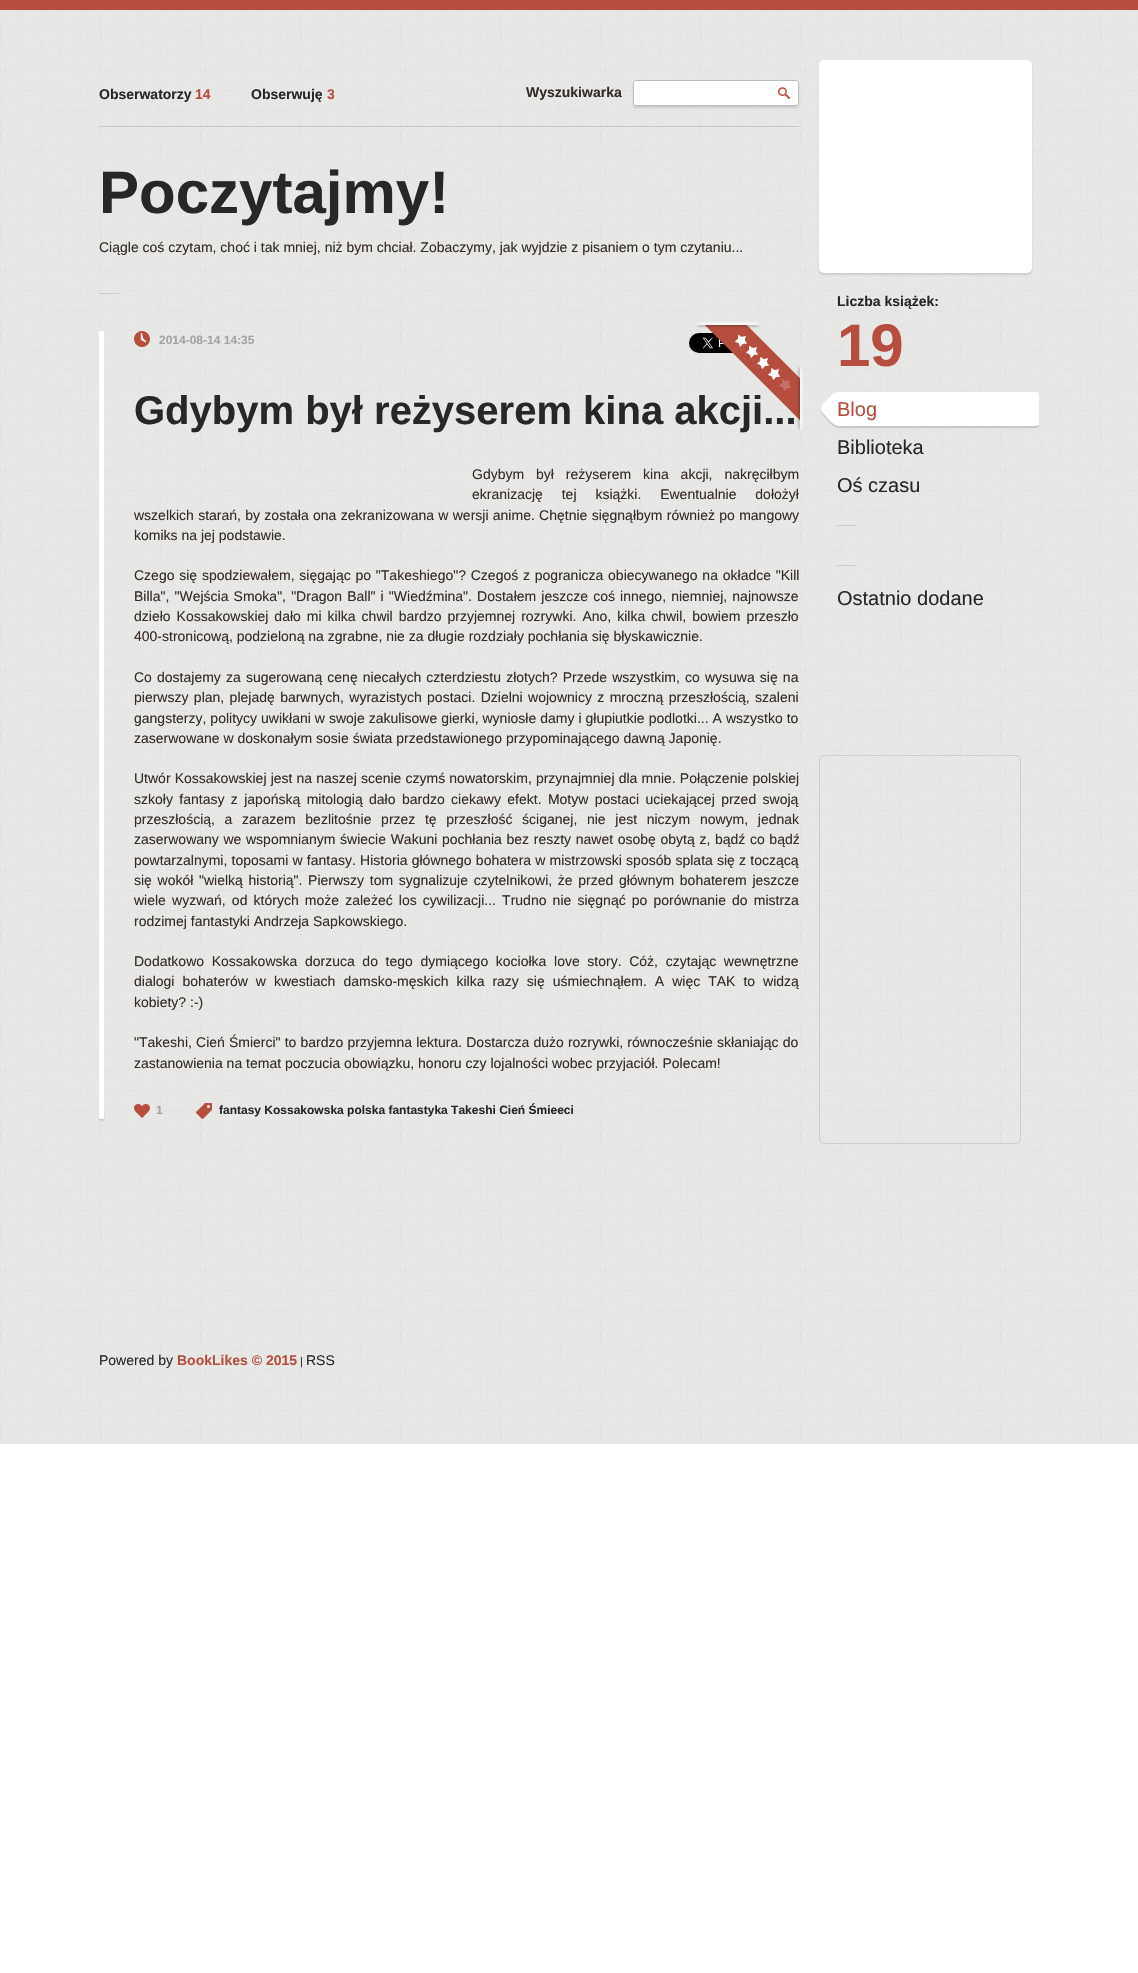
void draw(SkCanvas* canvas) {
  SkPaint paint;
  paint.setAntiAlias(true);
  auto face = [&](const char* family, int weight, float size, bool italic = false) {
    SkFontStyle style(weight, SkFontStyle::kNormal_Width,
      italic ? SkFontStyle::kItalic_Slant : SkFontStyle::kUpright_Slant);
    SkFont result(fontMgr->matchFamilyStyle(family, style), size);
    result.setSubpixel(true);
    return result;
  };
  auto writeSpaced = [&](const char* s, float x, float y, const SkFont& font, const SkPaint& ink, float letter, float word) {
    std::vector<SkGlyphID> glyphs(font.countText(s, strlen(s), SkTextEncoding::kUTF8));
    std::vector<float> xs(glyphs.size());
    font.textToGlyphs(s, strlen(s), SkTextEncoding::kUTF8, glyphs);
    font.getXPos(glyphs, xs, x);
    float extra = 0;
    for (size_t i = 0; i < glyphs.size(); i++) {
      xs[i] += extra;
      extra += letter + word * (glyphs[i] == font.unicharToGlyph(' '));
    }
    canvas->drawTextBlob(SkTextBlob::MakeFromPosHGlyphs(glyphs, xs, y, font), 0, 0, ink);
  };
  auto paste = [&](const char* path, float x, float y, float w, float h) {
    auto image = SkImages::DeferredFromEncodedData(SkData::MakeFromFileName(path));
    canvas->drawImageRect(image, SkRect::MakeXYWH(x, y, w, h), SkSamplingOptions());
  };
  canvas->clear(0xffffffff);
  paste("img/1.png", 0, 10, 1138, 1434);
  paint.setColor(0xffb54e3f);
  canvas->drawRect(SkRect::MakeXYWH(0, 0, 1138, 10), paint);
  paint.setColor(0xffc7c7c5);
  canvas->drawRect(SkRect::MakeXYWH(99, 126, 700, 1), paint);
  paint.setColor(0xffcccccc);
  paint.setMaskFilter(SkMaskFilter::MakeBlur(kNormal_SkBlurStyle, 1));
  canvas->drawRoundRect(SkRect::MakeXYWH(633, 82, 166, 26), 3, 3, paint);
  paint.setMaskFilter(nullptr);
  paint.setColor(0xffffffff);
  canvas->drawRoundRect(SkRect::MakeXYWH(633, 80, 166, 26), 3, 3, paint);
  paste("img/2.png", 778, 87, 12, 12);
  paint.setStroke(true);
  paint.setStrokeWidth(1);
  paint.setColor(0xffbbbbb9);
  canvas->drawRoundRect(SkRect::MakeXYWH(633.5f, 80.5f, 165, 25), 2.5f, 2.5f, paint);
  paint.setStroke(false);
  paint.setColor(0x26342e27);
  canvas->drawRect(SkRect::MakeXYWH(99, 293, 20, 1), paint);
  paint.setColor(0xffffffff);
  canvas->drawRect(SkRect::MakeXYWH(99, 331, 5, 788), paint);
  paste("img/3.png", 134, 331, 16, 16);
  paste("img/4.png", 689, 333, 44, 20);
  paste("img/6.png", 98, 1113, 7, 9);
  paste("img/7.png", 134, 1104, 16, 14);
  paste("img/8.png", 196, 1103, 16, 16);
  paint.setColor(0xffcccccc);
  paint.setMaskFilter(SkMaskFilter::MakeBlur(kNormal_SkBlurStyle, 1));
  canvas->drawRoundRect(SkRect::MakeXYWH(819, 62, 213, 213), 5, 5, paint);
  paint.setMaskFilter(nullptr);
  paint.setColor(0xffffffff);
  canvas->drawRoundRect(SkRect::MakeXYWH(819, 60, 213, 213), 5, 5, paint);
  paste("img/9.png", 820, 392, 219, 37);
  paint.setColor(0x26342e27);
  canvas->drawRect(SkRect::MakeXYWH(837, 525, 20, 1), paint);
  canvas->drawRect(SkRect::MakeXYWH(837, 565, 20, 1), paint);
  paint.setStroke(true);
  paint.setColor(0xffcccccc);
  canvas->drawRoundRect(SkRect::MakeXYWH(819.5f, 755.5f, 201, 388), 4.5f, 4.5f, paint);
  auto f0 = face("Liberation Sans", 700, 14);
  paint.setStroke(false);
  paint.setColor(0xff272727);
  canvas->drawString("Obserwatorzy", 99, 99, f0, paint);
  paint.setColor(0xffb64e3f);
  canvas->drawString("14", 195, 99, f0, paint);
  paint.setColor(0xff272727);
  canvas->drawString("Obserwuję", 251, 99, f0, paint);
  paint.setColor(0xffb64e3f);
  canvas->drawString("3", 327, 99, f0, paint);
  paint.setColor(0xff362b2a);
  canvas->drawString("Wyszukiwarka", 526, 97, f0, paint);
  auto f1 = face("Liberation Sans", 700, 60);
  paint.setColor(0xff272727);
  canvas->drawString("Poczytajmy!", 99, 213, f1, paint);
  auto f2 = face("Liberation Sans", 400, 14);
  paint.setColor(0xff362b2a);
  canvas->drawString("Ciągle coś czytam, choć i tak mniej, niż bym chciał. Zobaczymy, jak wyjdzie z pisaniem o tym czytaniu...", 99, 252, f2, paint);
  auto f3 = face("Liberation Sans", 700, 12);
  paint.setColor(0xffa4a4a4);
  canvas->drawString("2014-08-14 14:35", 159, 344, f3, paint);
  auto f4 = face("Liberation Sans", 700, 40);
  paint.setColor(0xff272727);
  canvas->drawString("Gdybym był reżyserem kina akcji...", 134, 424, f4, paint);
  paste("img/5.png", 696, 322, 107, 108);
  paint.setColor(0xff362b2a);
  writeSpaced("Gdybym był reżyserem kina akcji, nakręciłbym", 472, 479, f2, paint, 0, 8);
  writeSpaced("ekranizację tej książki. Ewentualnie dołożył", 472, 499, f2, paint, 0, 15);
  writeSpaced("wszelkich starań, by została ona zekranizowana w wersji anime. Chętnie sięgnąłbym również po mangowy", 134, 520, f2, paint, 0, 0.4f);
  canvas->drawString("komiks na jej podstawie.", 134, 540, f2, paint);
  writeSpaced("Czego się spodziewałem, sięgając po \"Takeshiego\"? Czegoś z pogranicza obiecywanego na okładce \"Kill", 134, 580, f2, paint, 0, 0.9f);
  writeSpaced("Billa\", \"Wejścia Smoka\", \"Dragon Ball\" i \"Wiedźmina\". Dostałem jeszcze coś innego, niemniej, najnowsze", 134, 601, f2, paint, 0, 1.25f);
  writeSpaced("dzieło Kossakowskiej dało mi kilka chwil bardzo przyjemnej rozrywki. Ano, kilka chwil, bowiem przeszło", 134, 621, f2, paint, 0, 2.1f);
  canvas->drawString("400-stronicową, podzieloną na zgrabne, nie za długie rozdziały pochłania się błyskawicznie.", 134, 641, f2, paint);
  writeSpaced("Co dostajemy za sugerowaną cenę niecałych czterdziestu złotych? Przede wszystkim, co wysuwa się na", 134, 682, f2, paint, 0, 1.25f);
  writeSpaced("pierwszy plan, plejadę barwnych, wyrazistych postaci. Dzielni wojownicy z mroczną przeszłością, szaleni", 134, 702, f2, paint, 0, 1.5f);
  writeSpaced("gangsterzy, politycy uwikłani w swoje zakulisowe gierki, wyniosłe damy i głupiutkie podlotki... A wszystko to", 134, 723, f2, paint, 0, 0.1f);
  canvas->drawString("zaserwowane w doskonałym sosie świata przedstawionego przypominającego dawną Japonię.", 134, 743, f2, paint);
  writeSpaced("Utwór Kossakowskiej jest na naszej scenie czymś nowatorskim, przynajmniej dla mnie. Połączenie polskiej", 134, 783, f2, paint, 0, 0.25f);
  writeSpaced("szkoły fantasy z japońską mitologią dało bardzo ciekawy efekt. Motyw postaci uciekającej przed swoją", 134, 804, f2, paint, 0, 2.5f);
  writeSpaced("przeszłością, a zarazem bezlitośnie przez tę przeszłość ściganej, nie jest niczym nowym, jednak", 134, 824, f2, paint, 0, 5.75f);
  writeSpaced("zaserwowany we wspomnianym świecie Wakuni pochłania bez reszty nawet osobę obytą z, bądź co bądź", 134, 844, f2, paint, 0, 0.75f);
  writeSpaced("powtarzalnymi, toposami w fantasy. Historia głównego bohatera w mistrzowski sposób splata się z toczącą", 134, 865, f2, paint, 0, 0.3f);
  writeSpaced("się wokół \"wielką historią\". Pierwszy tom sygnalizuje czytelnikowi, że przed głównym bohaterem jeszcze", 134, 885, f2, paint, 0, 1.75f);
  writeSpaced("wiele wyzwań, od których może zależeć los cywilizacji... Trudno nie sięgnąć po porównanie do mistrza", 134, 905, f2, paint, 0, 2.25f);
  canvas->drawString("rodzimej fantastyki Andrzeja Sapkowskiego.", 134, 926, f2, paint);
  writeSpaced("Dodatkowo Kossakowska dorzuca do tego dymiącego kociołka love story. Cóż, czytając wewnętrzne", 134, 966, f2, paint, 0, 3.75f);
  writeSpaced("dialogi bohaterów w kwestiach damsko-męskich kilka razy się uśmiechnąłem. A więc TAK to widzą", 134, 986, f2, paint, 0, 4.1f);
  canvas->drawString("kobiety? :-)", 134, 1007, f2, paint);
  writeSpaced("\"Takeshi, Cień Śmierci\" to bardzo przyjemna lektura. Dostarcza dużo rozrywki, równocześnie skłaniając do", 134, 1047, f2, paint, 0, 0.25f);
  canvas->drawString("zastanowienia na temat poczucia obowiązku, honoru czy lojalności wobec przyjaciół. Polecam!", 134, 1068, f2, paint);
  paint.setColor(0xffa4a4a4);
  canvas->drawString("1", 156, 1114, f3, paint);
  paint.setColor(0xff272727);
  canvas->drawString("fantasy Kossakowska polska fantastyka Takeshi Cień Śmieeci", 219, 1114, f3, paint);
  canvas->drawString("Liczba książek:", 837, 306, f0, paint);
  paint.setColor(0xffb64e3f);
  canvas->drawString("19", 837, 366, f1, paint);
  auto f5 = face("Liberation Sans", 400, 20);
  canvas->drawString("Blog", 837, 416, f5, paint);
  paint.setColor(0xff272727);
  {
    const struct { const char* s; float x, y; } items[] = {
      {"Biblioteka", 837, 454},
      {"Oś czasu", 837, 492},
      {"Ostatnio dodane", 837, 605},
    };
    for (auto [s, x, y] : items) {
      canvas->drawString(s, x, y, f5, paint);
    }
  }
  canvas->drawString("Powered by", 99, 1365, f2, paint);
  paint.setColor(0xffb64e3f);
  canvas->drawString("BookLikes © 2015", 177, 1365, f0, paint);
  auto f6 = face("Liberation Sans", 400, 11);
  paint.setColor(0xff362b2a);
  canvas->drawString("|", 300, 1365, f6, paint);
  paint.setColor(0xff272727);
  canvas->drawString("RSS", 306, 1365, f2, paint);
}
